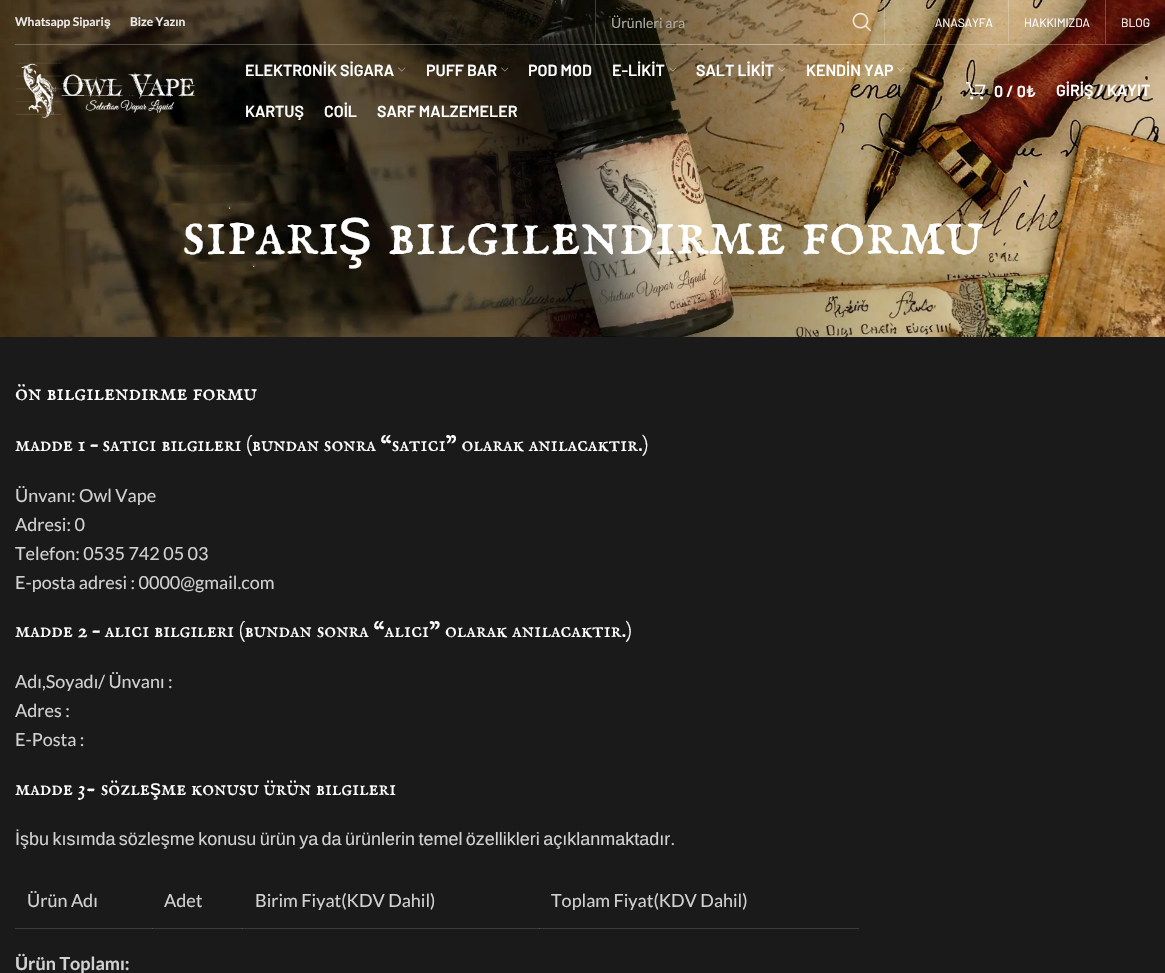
void draw(SkCanvas* canvas) {
  SkPaint paint;
  paint.setAntiAlias(true);
  auto face = [&](const char* family, int weight, float size, bool italic = false) {
    SkFontStyle style(weight, SkFontStyle::kNormal_Width,
      italic ? SkFontStyle::kItalic_Slant : SkFontStyle::kUpright_Slant);
    SkFont result(fontMgr->matchFamilyStyle(family, style), size);
    result.setSubpixel(true);
    return result;
  };
  auto writeSpaced = [&](const char* s, float x, float y, const SkFont& font, const SkPaint& ink, float letter, float word) {
    std::vector<SkGlyphID> glyphs(font.countText(s, strlen(s), SkTextEncoding::kUTF8));
    std::vector<float> xs(glyphs.size());
    font.textToGlyphs(s, strlen(s), SkTextEncoding::kUTF8, glyphs);
    font.getXPos(glyphs, xs, x);
    float extra = 0;
    for (size_t i = 0; i < glyphs.size(); i++) {
      xs[i] += extra;
      extra += letter + word * (glyphs[i] == font.unicharToGlyph(' '));
    }
    canvas->drawTextBlob(SkTextBlob::MakeFromPosHGlyphs(glyphs, xs, y, font), 0, 0, ink);
  };
  auto paste = [&](const char* path, float x, float y, float w, float h) {
    auto image = SkImages::DeferredFromEncodedData(SkData::MakeFromFileName(path));
    canvas->drawImageRect(image, SkRect::MakeXYWH(x, y, w, h), SkSamplingOptions());
  };
  canvas->clear(0xff1a1a1a);
  {
    const struct { float x, y, w, h; SkColor color; } items[] = {
      {15, 928, 844, 1, 0xff3c3c3c},
      {152, 928, 1, 1, 0xff595959},
      {242, 928, 1, 1, 0xff595959},
    };
    for (auto [x, y, w, h, color] : items) {
      paint.setColor(color);
      canvas->drawRect(SkRect::MakeXYWH(x, y, w, h), paint);
    }
  }
  paste("img/9.png", 0, 0, 1165, 337);
  paint.setColor(0x40ffffff);
  canvas->drawRect(SkRect::MakeXYWH(15, 44, 1135, 1), paint);
  paint.setStroke(true);
  paint.setStrokeWidth(1);
  paint.setColor(0x33ffffff);
  canvas->drawRect(SkRect::MakeXYWH(595.5f, -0.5f, 289, 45), paint);
  paste("img/1.png", 852, 12, 20, 20);
  paint.setStroke(false);
  paint.setColor(0x40ffffff);
  canvas->drawRect(SkRect::MakeXYWH(1008, 0, 1, 44), paint);
  canvas->drawRect(SkRect::MakeXYWH(1105, 0, 1, 44), paint);
  paste("img/2.png", 16, 62, 179, 56);
  paste("img/3.png", 398, 67, 8, 5);
  paste("img/4.png", 501, 67, 8, 5);
  paste("img/5.png", 669, 67, 8, 5);
  paste("img/6.png", 778, 67, 8, 5);
  paste("img/7.png", 897, 67, 8, 5);
  paste("img/8.png", 966, 82, 20, 18);
  paint.setColor(0xff595959);
  canvas->drawRect(SkRect::MakeXYWH(539, 928, 1, 1), paint);
  auto f0 = face("Lato", 700, 12);
  paint.setColor(0xffedebe9);
  canvas->drawString("Whatsapp Sipari", 15, 26, f0, paint);
  auto f1 = face("Liberation Sans", 700, 12);
  canvas->drawString("ş", 104, 26, f1, paint);
  canvas->drawString("Bize Yazın", 130, 26, f0, paint);
  auto f2 = face("Lato", 400, 14);
  paint.setColor(0xffaca9a2);
  canvas->drawString("Ürünleri ara", 611, 28, f2, paint);
  auto f3 = face("Barlow", 400, 12);
  paint.setColor(0xffffffff);
  {
    const struct { const char* s; float x, y; } items[] = {
      {"ANASAYFA", 935, 27},
      {"HAKKIMIZDA", 1024, 27},
      {"BLOG", 1121, 27},
    };
    for (auto [s, x, y] : items) {
      canvas->drawString(s, x, y, f3, paint);
    }
  }
  auto f4 = face("Barlow", 600, 16);
  {
    const struct { const char* s; float x, y; } items[] = {
      {"ELEKTRONİK SİGARA", 245, 76},
      {"PUFF BAR", 426, 76},
      {"POD MOD", 528, 76},
      {"E-LİKİT", 612, 76},
      {"SALT LİKİT", 696, 76},
      {"KENDİN YAP", 806, 76},
      {"KARTUŞ", 245, 117},
      {"COİL", 324, 117},
      {"SARF MALZEMELER", 377, 117},
      {"0 / 0₺", 994, 97},
      {"GİRİŞ / KAYIT", 1056, 96},
    };
    for (auto [s, x, y] : items) {
      canvas->drawString(s, x, y, f4, paint);
    }
  }
  auto f5 = face("IM FELL English SC", 400, 68);
  canvas->drawString("sipari", 182, 254, f5, paint);
  auto f6 = face("Liberation Sans", 400, 68);
  canvas->drawString("ş", 338, 254, f6, paint);
  canvas->drawString("bilgilendirme formu", 387, 254, f5, paint);
  auto f7 = face("IM FELL English SC", 400, 24);
  canvas->drawString("ön bilgilendirme formu", 15, 400, f7, paint);
  auto f8 = face("IM FELL English SC", 400, 22);
  canvas->drawString("madde 1 – satıcı bilgileri (bundan sonra “satıcı” olarak anılacaktır.)", 15, 451, f8, paint);
  auto f9 = face("Lato", 400, 18);
  paint.setColor(0xffd1d1d1);
  {
    const struct { const char* s; float x, y; } items[] = {
      {"Ünvanı: Owl Vape", 15, 502},
      {"Adresi: 0", 15, 531},
      {"Telefon: 0535 742 05 03", 15, 560},
      {"E-posta adresi : 0000@gmail.com", 15, 589},
    };
    for (auto [s, x, y] : items) {
      canvas->drawString(s, x, y, f9, paint);
    }
  }
  paint.setColor(0xffffffff);
  canvas->drawString("madde 2 – alıcı bilgileri (bundan sonra “alıcı” olarak anılacaktır.)", 15, 637, f8, paint);
  paint.setColor(0xffd1d1d1);
  {
    const struct { const char* s; float x, y; } items[] = {
      {"Adı,Soyadı/ Ünvanı :", 15, 688},
      {"Adres :", 15, 717},
      {"E-Posta :", 15, 746},
    };
    for (auto [s, x, y] : items) {
      canvas->drawString(s, x, y, f9, paint);
    }
  }
  paint.setColor(0xffffffff);
  canvas->drawString("madde 3- sözle", 15, 795, f8, paint);
  auto f10 = face("Liberation Sans", 400, 22);
  canvas->drawString("ş", 150, 795, f10, paint);
  canvas->drawString("me konusu ürün bilgileri", 161, 795, f8, paint);
  auto f11 = face("Liberation Sans", 400, 18);
  paint.setColor(0xffd1d1d1);
  writeSpaced("İşbu kısımda sözleşme konusu ürün ya da ürünlerin temel özellikleri açıklanmaktadır.", 15, 845, f11, paint, 0, -1.6f);
  {
    const struct { const char* s; float x, y; } items[] = {
      {"Ürün Adı", 27, 907},
      {"Adet", 164, 907},
      {"Birim Fiyat(KDV Dahil)", 255, 907},
      {"Toplam Fiyat(KDV Dahil)", 551, 907},
    };
    for (auto [s, x, y] : items) {
      canvas->drawString(s, x, y, f9, paint);
    }
  }
  auto f12 = face("Lato", 700, 18);
  canvas->drawString("Ürün Toplamı:", 15, 970, f12, paint);
}
